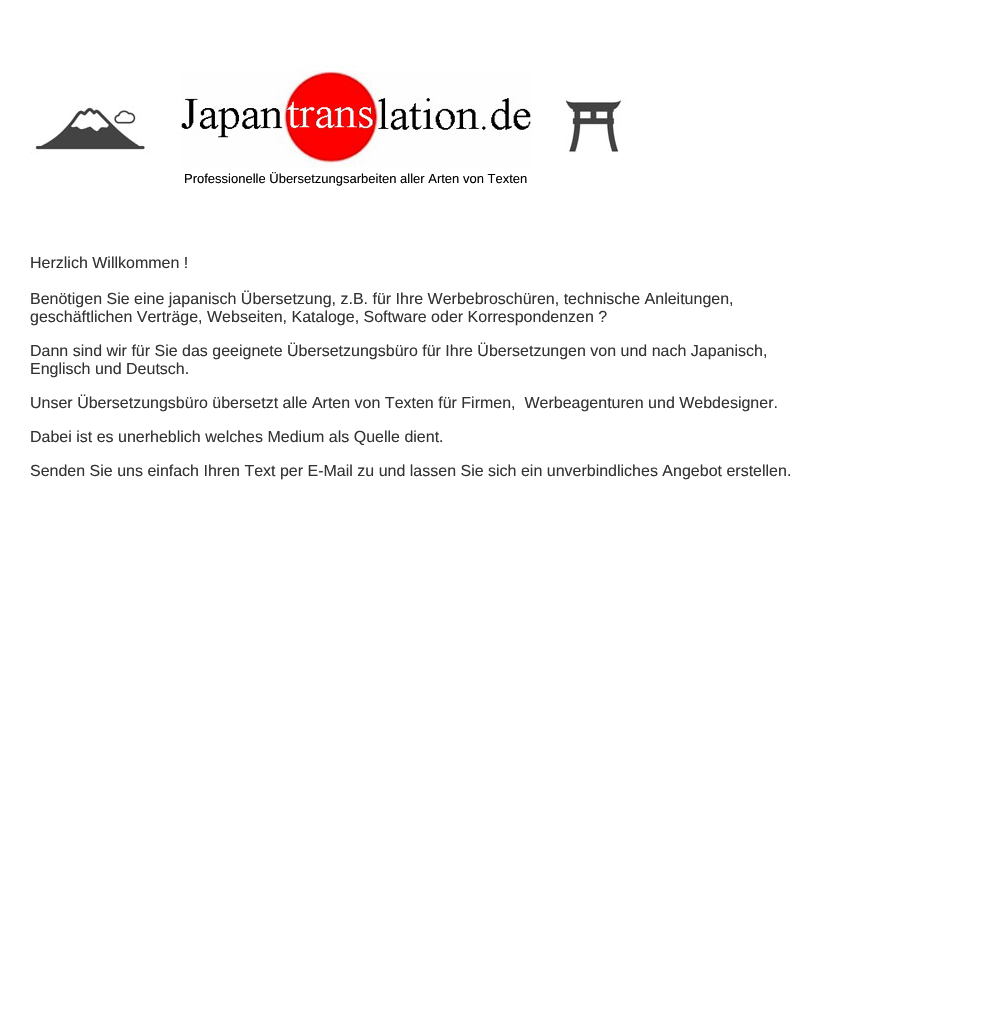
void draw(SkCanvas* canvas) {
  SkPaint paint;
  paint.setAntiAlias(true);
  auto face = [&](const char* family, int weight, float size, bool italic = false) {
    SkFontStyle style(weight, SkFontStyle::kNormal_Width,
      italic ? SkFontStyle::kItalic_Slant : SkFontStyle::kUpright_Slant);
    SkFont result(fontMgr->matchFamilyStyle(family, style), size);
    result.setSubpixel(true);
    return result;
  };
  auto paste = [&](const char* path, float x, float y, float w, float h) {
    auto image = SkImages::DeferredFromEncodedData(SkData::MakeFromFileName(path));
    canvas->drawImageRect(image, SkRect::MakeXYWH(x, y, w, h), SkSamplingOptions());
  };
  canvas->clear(0xffffffff);
  paste("img/1.png", 30, 106, 120, 48);
  paste("img/2.png", 564, 98, 64, 56);
  paste("img/3.png", 181, 64, 351, 104);
  auto f0 = face("Liberation Sans", 400, 13);
  paint.setColor(0xff000000);
  canvas->drawString("Professionelle Übersetzungsarbeiten aller Arten von Texten", 184, 183, f0, paint);
  auto f1 = face("Liberation Sans", 400, 16);
  paint.setColor(0xff333333);
  {
    const struct { const char* s; float x, y; } items[] = {
      {"Herzlich Willkommen !", 30, 268},
      {"Benötigen Sie eine japanisch Übersetzung, z.B. für Ihre Werbebroschüren, technische Anleitungen,", 30, 304},
      {"geschäftlichen Verträge, Webseiten, Kataloge, Software oder Korrespondenzen ?", 30, 322},
      {"Dann sind wir für Sie das geeignete Übersetzungsbüro für Ihre Übersetzungen von und nach Japanisch,", 30, 356},
      {"Englisch und Deutsch.", 30, 374},
      {"Unser Übersetzungsbüro übersetzt alle Arten von Texten für Firmen,  Werbeagenturen und Webdesigner.", 30, 408},
      {"Dabei ist es unerheblich welches Medium als Quelle dient.", 30, 442},
      {"Senden Sie uns einfach Ihren Text per E-Mail zu und lassen Sie sich ein unverbindliches Angebot erstellen.", 30, 476},
    };
    for (auto [s, x, y] : items) {
      canvas->drawString(s, x, y, f1, paint);
    }
  }
}
